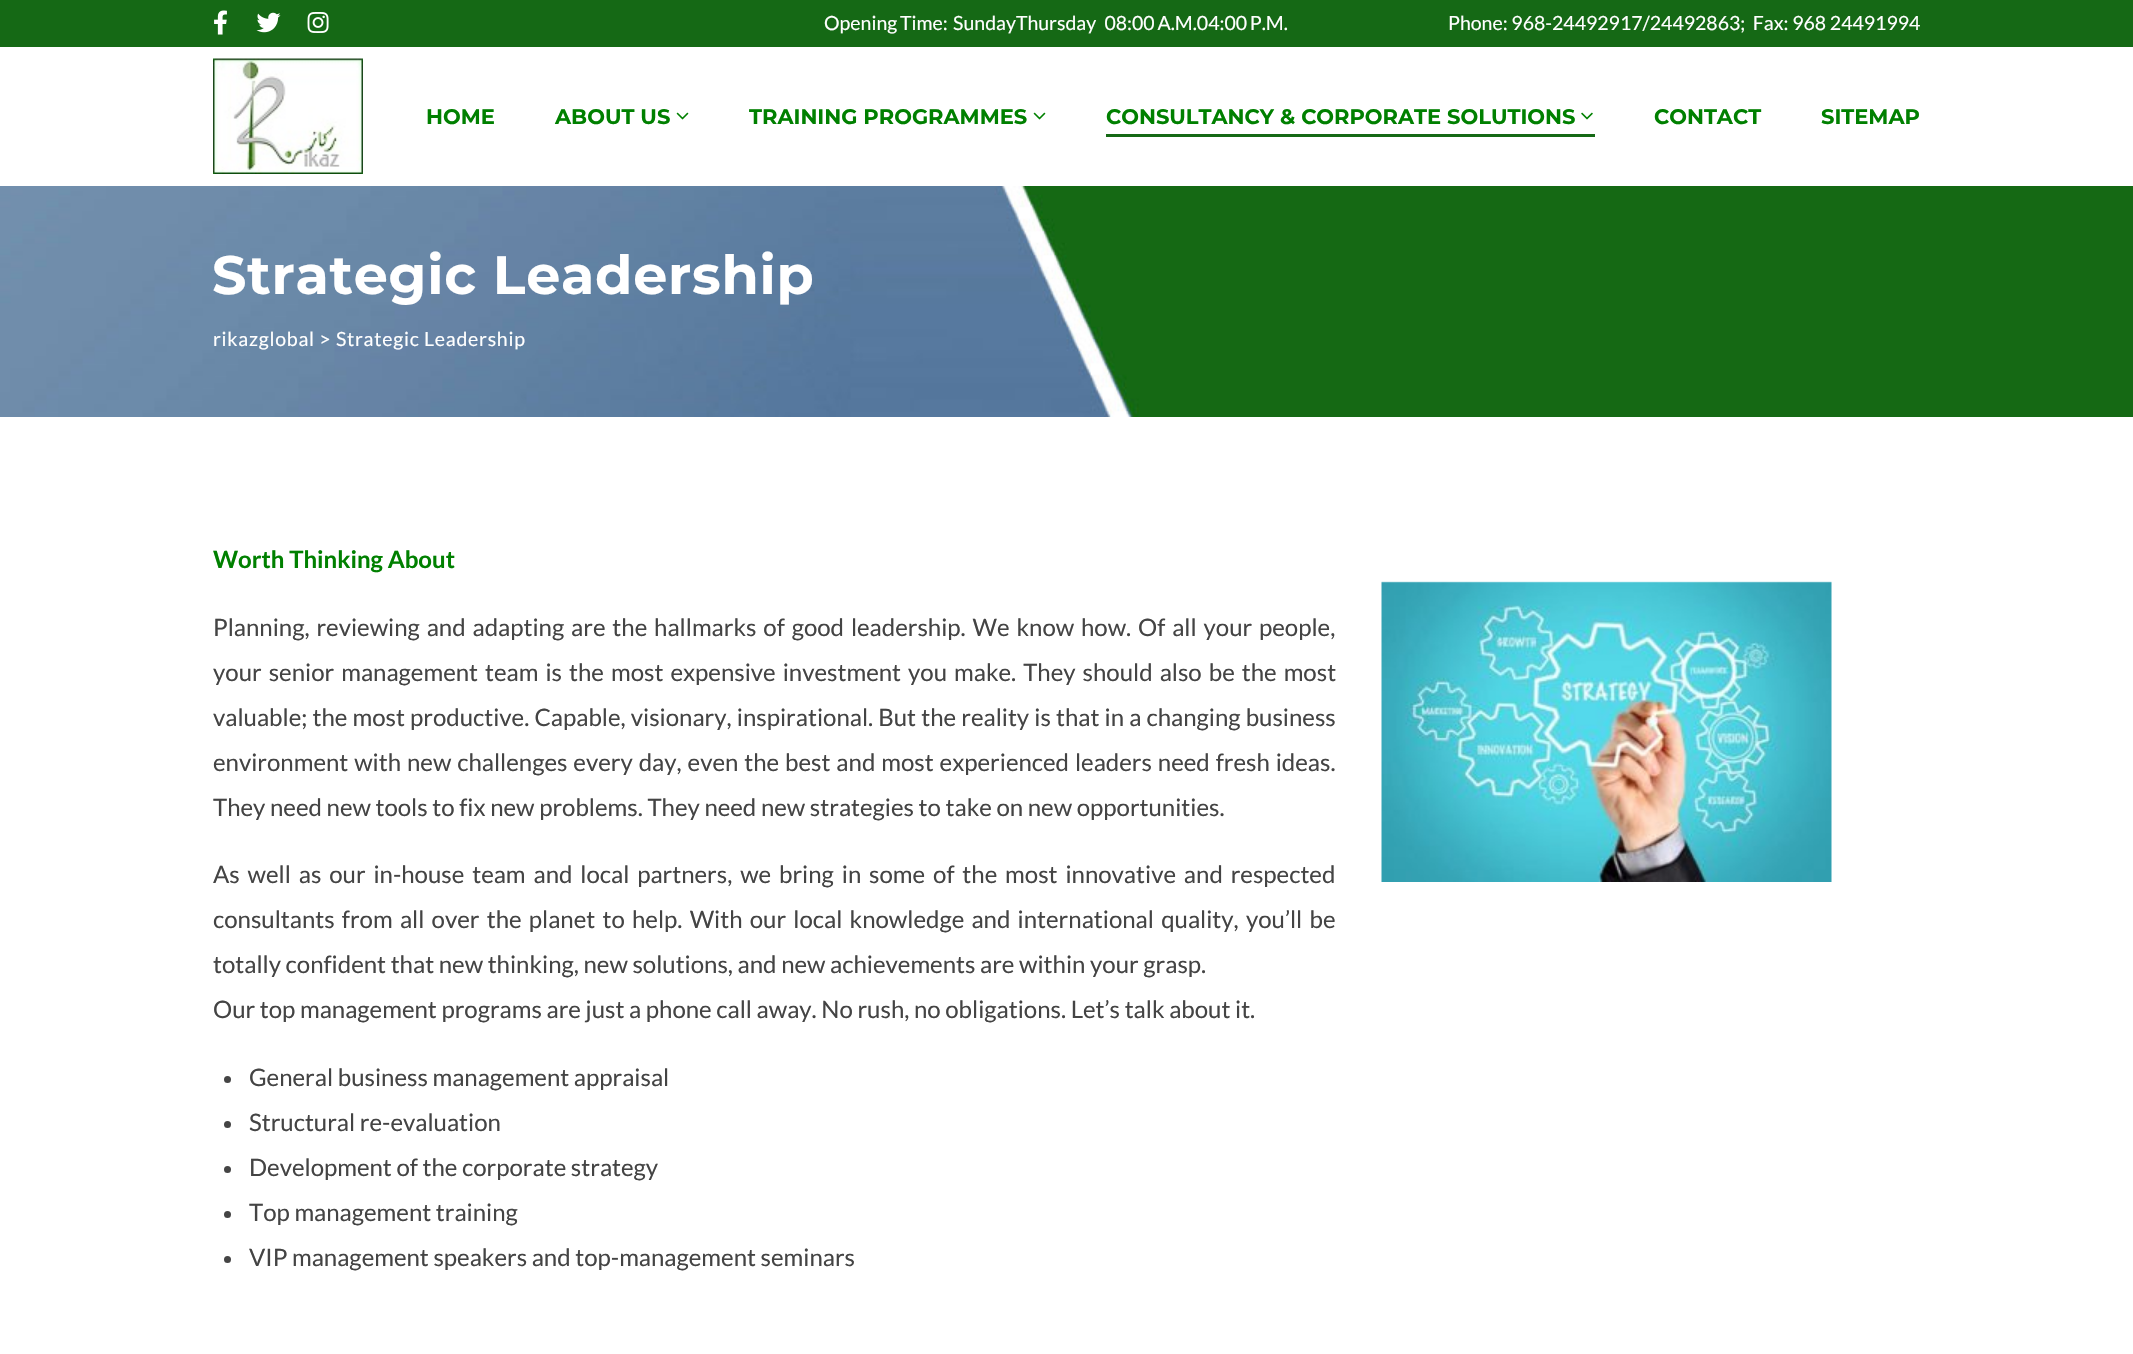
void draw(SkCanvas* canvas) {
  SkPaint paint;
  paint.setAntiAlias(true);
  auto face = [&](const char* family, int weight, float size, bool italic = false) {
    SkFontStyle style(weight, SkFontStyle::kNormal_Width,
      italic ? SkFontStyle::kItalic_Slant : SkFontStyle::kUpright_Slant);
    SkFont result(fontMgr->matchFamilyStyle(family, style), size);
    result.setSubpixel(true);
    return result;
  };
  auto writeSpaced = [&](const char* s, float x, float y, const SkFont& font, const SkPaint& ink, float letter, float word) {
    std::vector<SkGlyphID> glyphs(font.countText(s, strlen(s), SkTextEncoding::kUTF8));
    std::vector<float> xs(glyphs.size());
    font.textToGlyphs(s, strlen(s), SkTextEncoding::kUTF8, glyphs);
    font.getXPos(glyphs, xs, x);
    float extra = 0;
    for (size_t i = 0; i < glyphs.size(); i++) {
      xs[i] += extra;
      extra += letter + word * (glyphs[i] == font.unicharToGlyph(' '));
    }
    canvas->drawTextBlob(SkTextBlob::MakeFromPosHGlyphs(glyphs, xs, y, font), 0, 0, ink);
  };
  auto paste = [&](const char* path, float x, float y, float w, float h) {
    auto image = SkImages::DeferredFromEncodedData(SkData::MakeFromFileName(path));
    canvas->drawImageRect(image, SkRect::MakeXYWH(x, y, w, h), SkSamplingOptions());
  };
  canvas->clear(0xffffffff);
  paint.setColor(0xff156915);
  canvas->drawRect(SkRect::MakeXYWH(0, 0, 2133, 47), paint);
  paste("img/1.png", 214, 10, 13, 25);
  paste("img/2.png", 256, 12, 25, 21);
  paste("img/3.png", 307, 12, 22, 21);
  paste("img/4.png", 213, 58, 150, 116);
  paste("img/5.png", 676, 112, 13, 8);
  paste("img/5.png", 1033, 112, 13, 8);
  paste("img/6.png", 1581, 112, 12, 8);
  canvas->drawRect(SkRect::MakeXYWH(1106, 134, 489, 3), paint);
  paste("img/7.png", 0, 186, 2133, 231);
  paint.setColor(0xff444444);
  canvas->drawCircle(227.5f, 1079.5f, 3.5f, paint);
  canvas->drawCircle(227.5f, 1124.5f, 3.5f, paint);
  canvas->drawCircle(227.5f, 1169.5f, 3.5f, paint);
  canvas->drawCircle(227.5f, 1214.5f, 3.5f, paint);
  canvas->drawCircle(227.5f, 1259.5f, 3.5f, paint);
  paste("img/8.png", 1381, 581, 451, 301);
  auto f0 = face("Lato", 400, 19.5f);
  paint.setColor(0xffffffff);
  writeSpaced("Opening Time:  Sunday‑Thursday   08:00 A.M.‑04:00 P.M.", 824, 30, f0, paint, 0, -1);
  canvas->drawString("Phone: 968-24492917/24492863;  Fax: 968 24491994", 1448, 30, f0, paint);
  auto f1 = face("Montserrat", 700, 21);
  paint.setColor(0xff008000);
  {
    const struct { const char* s; float x, y; } items[] = {
      {"HOME", 426, 124},
      {"ABOUT US", 555, 124},
      {"TRAINING PROGRAMMES", 749, 124},
      {"CONSULTANCY & CORPORATE SOLUTIONS", 1106, 124},
      {"CONTACT", 1654, 124},
      {"SITEMAP", 1821, 124},
    };
    for (auto [s, x, y] : items) {
      canvas->drawString(s, x, y, f1, paint);
    }
  }
  auto f2 = face("Montserrat", 700, 54);
  paint.setColor(0xffffffff);
  writeSpaced("Strategic Leadership", 212, 294, f2, paint, 0.75f, 0);
  writeSpaced("rikazglobal > Strategic Leadership", 213, 346, f0, paint, 0.75f, 0);
  auto f3 = face("Lato", 700, 24);
  paint.setColor(0xff008000);
  canvas->drawString("Worth Thinking About", 213, 568, f3, paint);
  auto f4 = face("Lato", 400, 24);
  paint.setColor(0xff444444);
  writeSpaced("Planning, reviewing and adapting are the hallmarks of good leadership. We know how. Of all your people,", 213, 636, f4, paint, 0, 2.25f);
  writeSpaced("your senior management team is the most expensive investment you make. They should also be the most", 213, 681, f4, paint, 0, 2.4f);
  writeSpaced("valuable; the most productive. Capable, visionary, inspirational. But the reality is that in a changing business", 213, 726, f4, paint, 0, 0.5f);
  writeSpaced("environment with new challenges every day, even the best and most experienced leaders need fresh ideas.", 213, 771, f4, paint, 0, 1.3f);
  canvas->drawString("They need new tools to fix new problems. They need new strategies to take on new opportunities.", 213, 816, f4, paint);
  writeSpaced("As well as our in-house team and local partners, we bring in some of the most innovative and respected", 213, 883, f4, paint, 0, 3.25f);
  writeSpaced("consultants from all over the planet to help. With our local knowledge and international quality, you’ll be", 213, 928, f4, paint, 0, 2.6f);
  {
    const struct { const char* s; float x, y; } items[] = {
      {"totally confident that new thinking, new solutions, and new achievements are within your grasp.", 213, 973},
      {"Our top management programs are just a phone call away. No rush, no obligations. Let’s talk about it.", 213, 1018},
      {"General business management appraisal", 249, 1086},
      {"Structural re-evaluation", 249, 1131},
      {"Development of the corporate strategy", 249, 1176},
      {"Top management training", 249, 1221},
      {"VIP management speakers and top-management seminars", 249, 1266},
    };
    for (auto [s, x, y] : items) {
      canvas->drawString(s, x, y, f4, paint);
    }
  }
}
